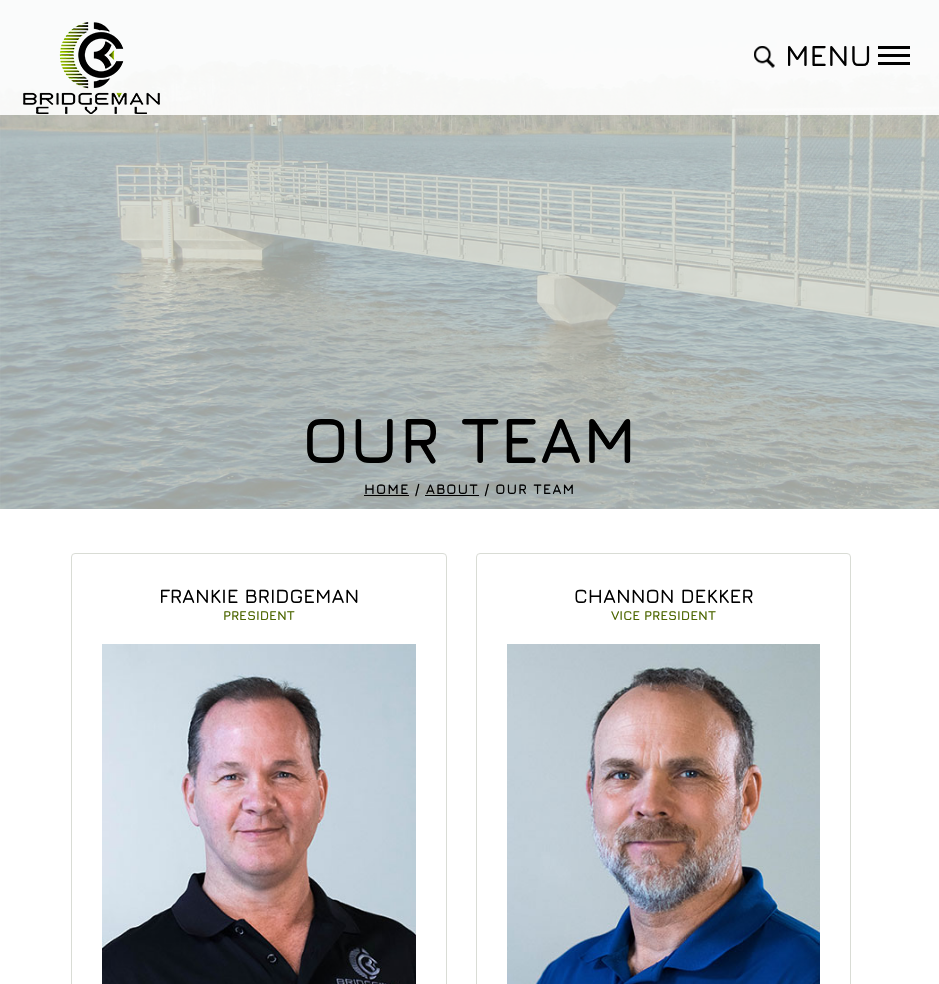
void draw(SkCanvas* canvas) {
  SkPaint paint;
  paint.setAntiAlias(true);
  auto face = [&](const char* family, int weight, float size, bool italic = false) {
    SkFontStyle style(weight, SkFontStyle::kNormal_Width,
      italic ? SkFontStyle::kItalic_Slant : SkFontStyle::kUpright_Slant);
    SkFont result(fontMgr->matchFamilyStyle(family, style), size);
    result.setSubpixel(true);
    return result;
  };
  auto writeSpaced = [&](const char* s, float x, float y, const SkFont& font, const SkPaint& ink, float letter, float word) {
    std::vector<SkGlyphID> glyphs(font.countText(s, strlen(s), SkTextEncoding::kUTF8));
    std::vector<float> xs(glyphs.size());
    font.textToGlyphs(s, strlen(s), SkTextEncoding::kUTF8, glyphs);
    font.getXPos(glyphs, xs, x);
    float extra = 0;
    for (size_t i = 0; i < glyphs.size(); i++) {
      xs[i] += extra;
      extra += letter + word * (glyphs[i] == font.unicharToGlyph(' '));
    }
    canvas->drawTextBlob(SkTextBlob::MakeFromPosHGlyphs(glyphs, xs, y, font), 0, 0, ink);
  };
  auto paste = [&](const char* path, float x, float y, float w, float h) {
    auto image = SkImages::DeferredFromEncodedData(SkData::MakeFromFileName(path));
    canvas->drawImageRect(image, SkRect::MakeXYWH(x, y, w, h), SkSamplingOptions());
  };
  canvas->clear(0xffffffff);
  paste("img/3.png", 0, 0, 939, 509);
  paint.setColor(0xe6ffffff);
  canvas->drawRect(SkRect::MakeXYWH(0, 0, 939, 115), paint);
  paste("img/1.png", 754, 46, 21, 22);
  {
    const struct { float x, y, w, h; SkColor color; } items[] = {
      {878, 54, 32, 3, 0xff000000},
      {878, 46, 32, 3, 0xff000000},
      {878, 62, 32, 3, 0xff000000},
    };
    for (auto [x, y, w, h, color] : items) {
      paint.setColor(color);
      canvas->drawRect(SkRect::MakeXYWH(x, y, w, h), paint);
    }
  }
  paste("img/2.png", 23, 22, 137, 92);
  canvas->drawRect(SkRect::MakeXYWH(364, 495, 45, 1), paint);
  canvas->drawRect(SkRect::MakeXYWH(425, 495, 54, 1), paint);
  paint.setStroke(true);
  paint.setStrokeWidth(1);
  paint.setColor(0xffd9dcd5);
  canvas->drawRoundRect(SkRect::MakeXYWH(71.5f, 553.5f, 375, 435), 3.5f, 3.5f, paint);
  paste("img/4.png", 102, 644, 314, 340);
  canvas->drawRoundRect(SkRect::MakeXYWH(476.5f, 553.5f, 374, 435), 3.5f, 3.5f, paint);
  paste("img/5.png", 507, 644, 313, 340);
  auto f0 = face("Jura", 600, 30);
  paint.setStroke(false);
  paint.setColor(0xff000000);
  canvas->drawString("MENU", 785, 66, f0, paint);
  auto f1 = face("Jura", 700, 65);
  canvas->drawString("OUR TEAM", 302, 463, f1, paint);
  auto f2 = face("Jura", 700, 14);
  writeSpaced("HOME / ABOUT / OUR TEAM", 364, 494, f2, paint, 1, 0);
  auto f3 = face("Jura", 600, 20);
  canvas->drawString("FRANKIE BRIDGEMAN", 159, 603, f3, paint);
  auto f4 = face("Jura", 700, 13);
  paint.setColor(0xff4c6600);
  canvas->drawString("PRESIDENT", 223, 620, f4, paint);
  paint.setColor(0xff000000);
  canvas->drawString("CHANNON DEKKER", 574, 603, f3, paint);
  paint.setColor(0xff4c6600);
  canvas->drawString("VICE PRESIDENT", 611, 620, f4, paint);
}
